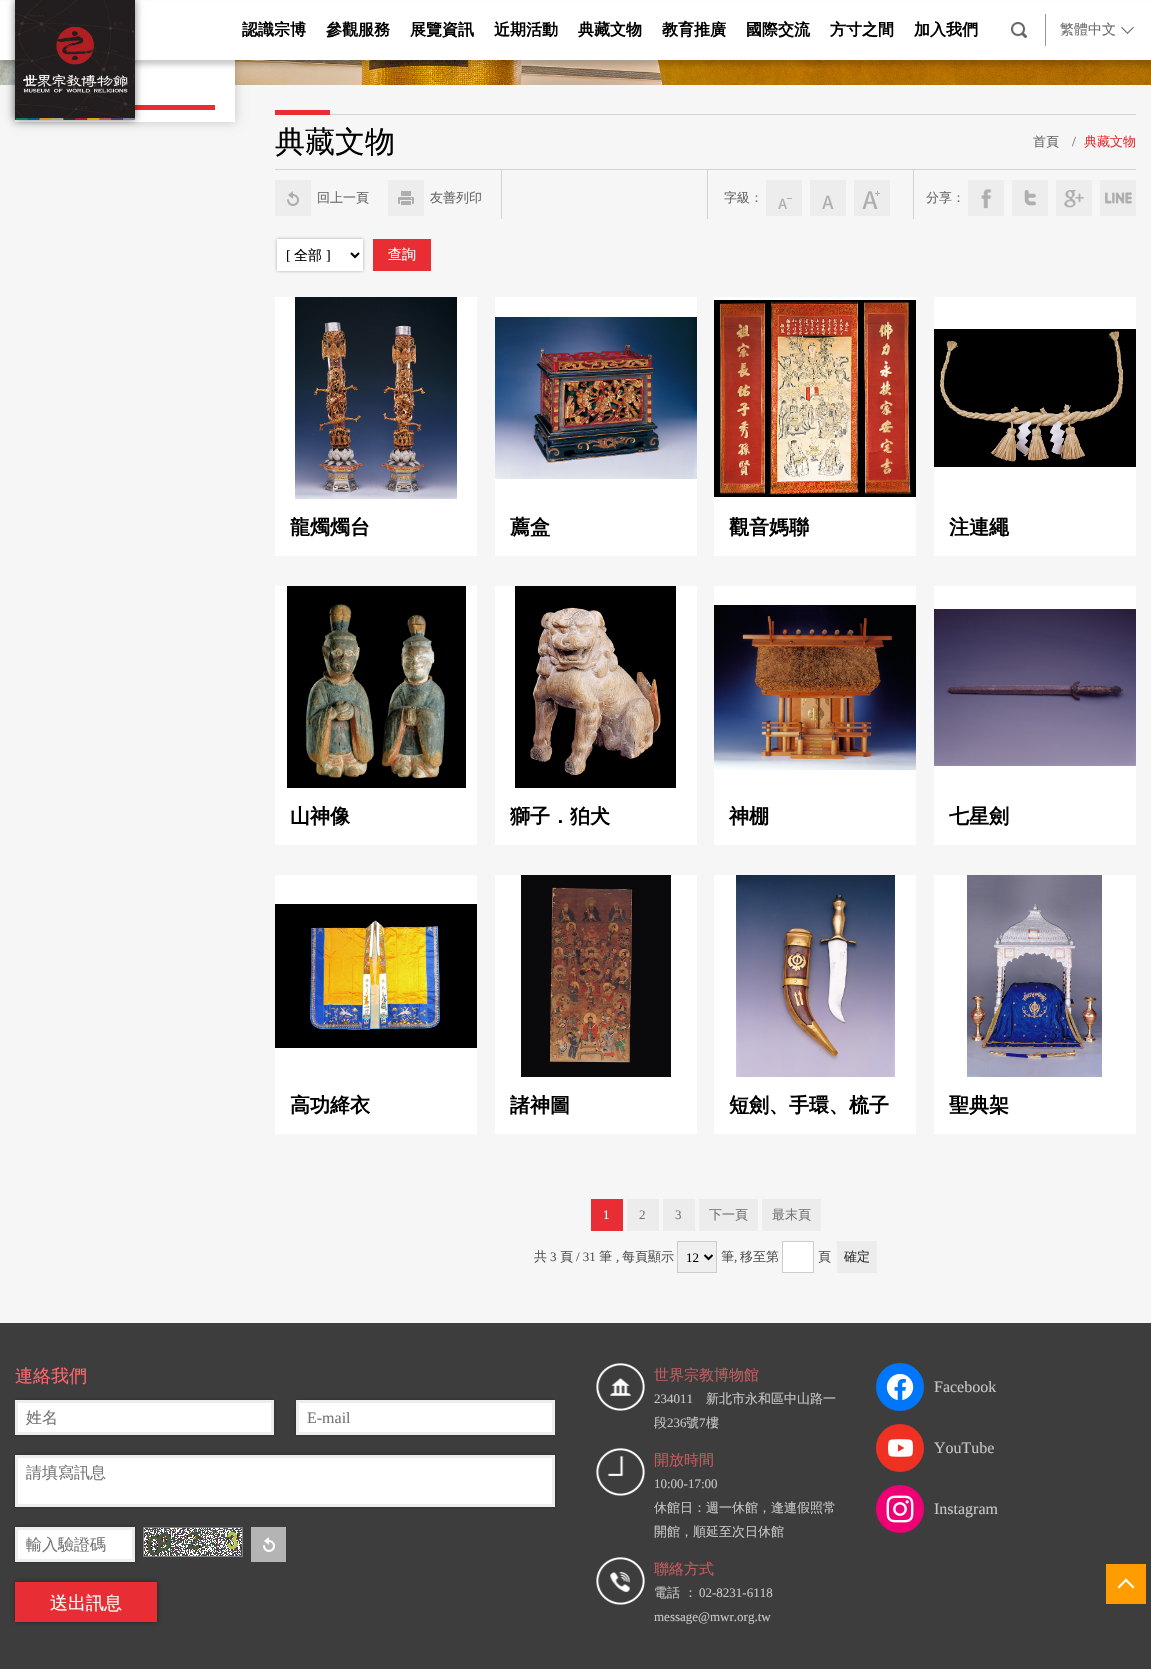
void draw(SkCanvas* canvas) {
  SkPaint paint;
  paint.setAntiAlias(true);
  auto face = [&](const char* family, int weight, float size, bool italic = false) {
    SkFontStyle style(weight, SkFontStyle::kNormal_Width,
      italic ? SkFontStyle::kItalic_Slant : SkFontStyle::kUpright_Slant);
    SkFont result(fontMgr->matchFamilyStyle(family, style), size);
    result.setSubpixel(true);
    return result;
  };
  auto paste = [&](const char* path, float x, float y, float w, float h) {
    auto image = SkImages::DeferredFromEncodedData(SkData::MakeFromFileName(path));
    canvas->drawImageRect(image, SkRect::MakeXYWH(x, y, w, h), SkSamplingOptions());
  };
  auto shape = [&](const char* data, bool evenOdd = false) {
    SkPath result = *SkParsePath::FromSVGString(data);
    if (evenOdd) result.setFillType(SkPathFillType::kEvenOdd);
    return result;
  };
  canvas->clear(0xffffffff);
  paste("img/3.png", 0, 60, 1151, 25);
  paint.setColor(0xfff6f6f6);
  canvas->drawRect(SkRect::MakeXYWH(0, 85, 1151, 1238), paint);
  paint.setColor(0x33000000);
  paint.setMaskFilter(SkMaskFilter::MakeBlur(kNormal_SkBlurStyle, 5));
  canvas->drawRect(SkRect::MakeXYWH(15, 50, 220, 72), paint);
  paint.setMaskFilter(nullptr);
  paint.setColor(0xffffffff);
  canvas->drawRect(SkRect::MakeXYWH(15, 60, 220, 62), paint);
  paint.setColor(0x33000000);
  paint.setMaskFilter(SkMaskFilter::MakeBlur(kNormal_SkBlurStyle, 2.5f));
  canvas->drawRect(SkRect::MakeXYWH(0, 5, 1151, 60), paint);
  paint.setMaskFilter(nullptr);
  paint.setColor(0xffffffff);
  canvas->drawRect(SkRect::MakeXYWH(0, 1, 1151, 59), paint);
  paint.setColor(0xffe82d34);
  canvas->drawRect(SkRect::MakeXYWH(135, 105, 80, 5), paint);
  paint.setColor(0x80000000);
  paint.setMaskFilter(SkMaskFilter::MakeBlur(kNormal_SkBlurStyle, 4));
  canvas->drawRect(SkRect::MakeXYWH(15, 0, 120, 120), paint);
  paint.setMaskFilter(nullptr);
  paste("img/1.png", 15, 0, 120, 120);
  paste("img/2.png", 1011, 22, 16, 16);
  paint.setColor(0xff999999);
  canvas->drawRect(SkRect::MakeXYWH(1045, 14, 1, 32), paint);
  paint.setColor(0xff666666);
  canvas->drawPath(shape("M1127.5 34L1121 27.5L1122 27L1128 33Z"), paint);
  canvas->drawPath(shape("M1127.5 34L1127 33L1133 27L1134 27.5Z"), paint);
  {
    const struct { float x, y, w, h; SkColor color; } items[] = {
      {330, 114, 806, 1, 0xffd3d3d3},
      {275, 110, 55, 5, 0xffe82d34},
      {275, 169, 861, 1, 0xffd3d3d3},
      {275, 180, 36, 36, 0xffededed},
    };
    for (auto [x, y, w, h, color] : items) {
      paint.setColor(color);
      canvas->drawRect(SkRect::MakeXYWH(x, y, w, h), paint);
    }
  }
  paste("img/4.png", 287, 191, 12, 15);
  canvas->drawRect(SkRect::MakeXYWH(388, 180, 36, 36), paint);
  paste("img/5.png", 398, 191, 16, 14);
  {
    const struct { float x, y, w, h; SkColor color; } items[] = {
      {501, 170, 1, 49, 0xffd3d3d3},
      {707, 170, 1, 49, 0xffd3d3d3},
      {766, 180, 36, 36, 0xffededed},
    };
    for (auto [x, y, w, h, color] : items) {
      paint.setColor(color);
      canvas->drawRect(SkRect::MakeXYWH(x, y, w, h), paint);
    }
  }
  paste("img/6.png", 778, 198, 14, 11);
  canvas->drawRect(SkRect::MakeXYWH(810, 180, 36, 36), paint);
  paste("img/7.png", 822, 195, 12, 14);
  canvas->drawRect(SkRect::MakeXYWH(854, 180, 36, 36), paint);
  paste("img/8.png", 862, 191, 18, 18);
  paint.setColor(0xffd3d3d3);
  canvas->drawRect(SkRect::MakeXYWH(913, 170, 1, 49), paint);
  paint.setColor(0xffededed);
  canvas->drawRect(SkRect::MakeXYWH(968, 180, 36, 36), paint);
  paste("img/9.png", 981, 189, 11, 20);
  canvas->drawRect(SkRect::MakeXYWH(1012, 180, 36, 36), paint);
  paste("img/10.png", 1024, 190, 12, 16);
  canvas->drawRect(SkRect::MakeXYWH(1056, 180, 36, 36), paint);
  paste("img/11.png", 1064, 190, 20, 18);
  canvas->drawRect(SkRect::MakeXYWH(1100, 180, 36, 36), paint);
  paste("img/12.png", 1105, 192, 27, 12);
  paint.setColor(0x4d000000);
  paint.setMaskFilter(SkMaskFilter::MakeBlur(kNormal_SkBlurStyle, 1.5f));
  canvas->drawRect(SkRect::MakeXYWH(277, 239, 86, 32), paint);
  paint.setMaskFilter(nullptr);
  paint.setColor(0xffffffff);
  canvas->drawRect(SkRect::MakeXYWH(277, 239, 86, 32), paint);
  paint.setStroke(true);
  paint.setStrokeWidth(2);
  paint.setColor(0xff000000);
  canvas->drawPath(shape("M351 253L355 257L359 253"), paint);
  paint.setStroke(false);
  paint.setColor(0xffe82d34);
  canvas->drawRect(SkRect::MakeXYWH(373, 239, 58, 32), paint);
  paint.setColor(0xffffffff);
  canvas->drawRect(SkRect::MakeXYWH(275, 297, 202, 259), paint);
  paste("img/13.png", 295, 297, 162, 202);
  canvas->drawRect(SkRect::MakeXYWH(495, 297, 202, 259), paint);
  paste("img/14.png", 495, 317, 202, 162);
  canvas->drawRect(SkRect::MakeXYWH(714, 297, 202, 259), paint);
  paste("img/15.png", 714, 300, 202, 197);
  canvas->drawRect(SkRect::MakeXYWH(934, 297, 202, 259), paint);
  paste("img/16.png", 934, 329, 202, 138);
  canvas->drawRect(SkRect::MakeXYWH(275, 586, 202, 259), paint);
  paste("img/17.png", 287, 586, 179, 202);
  canvas->drawRect(SkRect::MakeXYWH(495, 586, 202, 259), paint);
  paste("img/18.png", 515, 586, 161, 202);
  canvas->drawRect(SkRect::MakeXYWH(714, 586, 202, 259), paint);
  paste("img/19.png", 714, 605, 202, 165);
  canvas->drawRect(SkRect::MakeXYWH(934, 586, 202, 259), paint);
  paste("img/20.png", 934, 609, 202, 157);
  canvas->drawRect(SkRect::MakeXYWH(275, 875, 202, 259), paint);
  paste("img/21.png", 275, 904, 202, 144);
  canvas->drawRect(SkRect::MakeXYWH(495, 875, 202, 259), paint);
  paste("img/22.png", 521, 875, 150, 202);
  canvas->drawRect(SkRect::MakeXYWH(714, 875, 202, 259), paint);
  paste("img/23.png", 736, 875, 159, 202);
  canvas->drawRect(SkRect::MakeXYWH(934, 875, 202, 259), paint);
  paste("img/24.png", 967, 875, 135, 202);
  {
    const struct { float x, y, w, h; SkColor color; } items[] = {
      {591, 1199, 32, 32, 0xffe82d34},
      {627, 1199, 32, 32, 0xffececec},
      {663, 1199, 32, 32, 0xffececec},
      {699, 1199, 59, 32, 0xffececec},
      {762, 1199, 59, 32, 0xffececec},
    };
    for (auto [x, y, w, h, color] : items) {
      paint.setColor(color);
      canvas->drawRect(SkRect::MakeXYWH(x, y, w, h), paint);
    }
  }
  paint.setColor(0xffefefef);
  canvas->drawRect(SkRect::MakeXYWH(677.5f, 1241.5f, 39, 31), paint);
  paint.setStroke(true);
  paint.setStrokeWidth(1);
  paint.setColor(0xffcccccc);
  canvas->drawRect(SkRect::MakeXYWH(677.5f, 1241.5f, 39, 31), paint);
  paint.setStrokeWidth(2);
  paint.setColor(0xff000000);
  canvas->drawPath(shape("M704.5 1255L708.5 1259L712.5 1255"), paint);
  paint.setStroke(false);
  paint.setColor(0xffffffff);
  canvas->drawRect(SkRect::MakeXYWH(782.5f, 1241.5f, 31, 31), paint);
  paint.setStroke(true);
  paint.setStrokeWidth(1);
  paint.setColor(0xffcccccc);
  canvas->drawRect(SkRect::MakeXYWH(782.5f, 1241.5f, 31, 31), paint);
  paint.setStroke(false);
  paint.setColor(0xffececec);
  canvas->drawRect(SkRect::MakeXYWH(837, 1241, 40, 32), paint);
  paint.setColor(0xff3e3d3d);
  canvas->drawRect(SkRect::MakeXYWH(0, 1323, 1151, 346), paint);
  canvas->save();
  canvas->clipRect(SkRect::MakeXYWH(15, 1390, 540, 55));
  paint.setColor(0x4d000000);
  paint.setMaskFilter(SkMaskFilter::MakeBlur(kNormal_SkBlurStyle, 1.5f));
  canvas->drawRect(SkRect::MakeXYWH(15, 1400, 259, 35), paint);
  paint.setMaskFilter(nullptr);
  canvas->restore();
  paint.setColor(0xffffffff);
  canvas->drawRect(SkRect::MakeXYWH(16.5f, 1401.5f, 256, 32), paint);
  paint.setStroke(true);
  paint.setStrokeWidth(3);
  paint.setColor(0xffeeeeee);
  canvas->drawRect(SkRect::MakeXYWH(16.5f, 1401.5f, 256, 32), paint);
  canvas->save();
  canvas->clipRect(SkRect::MakeXYWH(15, 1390, 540, 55));
  paint.setStroke(false);
  paint.setColor(0x4d000000);
  paint.setMaskFilter(SkMaskFilter::MakeBlur(kNormal_SkBlurStyle, 1.5f));
  canvas->drawRect(SkRect::MakeXYWH(296, 1400, 259, 35), paint);
  paint.setMaskFilter(nullptr);
  canvas->restore();
  paint.setColor(0xffffffff);
  canvas->drawRect(SkRect::MakeXYWH(297.5f, 1401.5f, 256, 32), paint);
  paint.setStroke(true);
  paint.setColor(0xffeeeeee);
  canvas->drawRect(SkRect::MakeXYWH(297.5f, 1401.5f, 256, 32), paint);
  paint.setStroke(false);
  paint.setColor(0x4d000000);
  paint.setMaskFilter(SkMaskFilter::MakeBlur(kNormal_SkBlurStyle, 1.5f));
  canvas->drawRect(SkRect::MakeXYWH(15, 1455, 540, 52), paint);
  paint.setMaskFilter(nullptr);
  paint.setColor(0xffffffff);
  canvas->drawRect(SkRect::MakeXYWH(16.5f, 1456.5f, 537, 49), paint);
  paint.setStroke(true);
  paint.setColor(0xffeeeeee);
  canvas->drawRect(SkRect::MakeXYWH(16.5f, 1456.5f, 537, 49), paint);
  paint.setStroke(false);
  paint.setColor(0x4d000000);
  paint.setMaskFilter(SkMaskFilter::MakeBlur(kNormal_SkBlurStyle, 1.5f));
  canvas->drawRect(SkRect::MakeXYWH(15, 1527, 120, 35), paint);
  paint.setMaskFilter(nullptr);
  paint.setColor(0xffffffff);
  canvas->drawRect(SkRect::MakeXYWH(16.5f, 1528.5f, 117, 32), paint);
  paint.setStroke(true);
  paint.setColor(0xffeeeeee);
  canvas->drawRect(SkRect::MakeXYWH(16.5f, 1528.5f, 117, 32), paint);
  paste("img/25.png", 143, 1527, 100, 30);
  paint.setStroke(false);
  paint.setColor(0xffb4b4b4);
  canvas->drawRect(SkRect::MakeXYWH(251, 1527, 35, 35), paint);
  paste("img/26.png", 263, 1537, 12, 15);
  paint.setColor(0x66000000);
  paint.setMaskFilter(SkMaskFilter::MakeBlur(kNormal_SkBlurStyle, 2.5f));
  canvas->drawRect(SkRect::MakeXYWH(15, 1582, 142, 40), paint);
  paint.setMaskFilter(nullptr);
  paint.setColor(0xffe82d34);
  canvas->drawRect(SkRect::MakeXYWH(15, 1582, 142, 40), paint);
  paste("img/27.png", 596, 1363, 49, 48);
  paste("img/28.png", 596, 1448, 49, 48);
  paste("img/29.png", 596, 1557, 49, 48);
  paint.setColor(0xff0076fa);
  canvas->drawCircle(900, 1387, 24, paint);
  paste("img/30.png", 886, 1374, 28, 26);
  paint.setColor(0xffee3123);
  canvas->drawCircle(900, 1448, 24, paint);
  paste("img/31.png", 888, 1439, 25, 18);
  paint.setColor(0xfff00075);
  canvas->drawCircle(900, 1509, 24, paint);
  paste("img/32.png", 886, 1495, 28, 28);
  paint.setColor(0xffff9c00);
  canvas->drawRect(SkRect::MakeXYWH(1106, 1564, 40, 40), paint);
  paint.setColor(0xffffffff);
  canvas->drawPath(shape("M1126 1578.5L1134.5 1587L1133 1588.5L1124.5 1580Z"), paint);
  canvas->drawPath(shape("M1126 1578.5L1127.5 1580L1119 1588.5L1117.5 1587Z"), paint);
  auto f0 = face("WenQuanYi Zen Hei", 700, 16);
  paint.setColor(0xff000000);
  {
    const struct { const char* s; float x, y; } items[] = {
      {"認識宗博", 242, 35},
      {"參觀服務", 326, 35},
      {"展覽資訊", 410, 35},
      {"近期活動", 494, 35},
      {"典藏文物", 578, 35},
      {"教育推廣", 662, 35},
      {"國際交流", 746, 35},
      {"方寸之間", 830, 35},
      {"加入我們", 914, 35},
    };
    for (auto [s, x, y] : items) {
      canvas->drawString(s, x, y, f0, paint);
    }
  }
  auto f1 = face("WenQuanYi Zen Hei", 500, 14);
  paint.setColor(0xff696969);
  canvas->drawString("繁體中文", 1060, 34, f1, paint);
  auto f2 = face("WenQuanYi Zen Hei", 500, 30);
  paint.setColor(0xff000000);
  canvas->drawString("典藏文物", 275, 152, f2, paint);
  auto f3 = face("WenQuanYi Zen Hei", 500, 13);
  paint.setColor(0xff696969);
  canvas->drawString("首頁", 1033, 146, f3, paint);
  auto f4 = face("Liberation Serif", 400, 14);
  canvas->drawString("/", 1072, 146, f4, paint);
  paint.setColor(0xffe82d34);
  canvas->drawString("典藏文物", 1084, 146, f3, paint);
  paint.setColor(0xff696969);
  {
    const struct { const char* s; float x, y; } items[] = {
      {"回上一頁", 317, 202},
      {"友善列印", 430, 202},
      {"字級：", 724, 202},
      {"分享：", 926, 202},
    };
    for (auto [s, x, y] : items) {
      canvas->drawString(s, x, y, f3, paint);
    }
  }
  paint.setColor(0xff000000);
  canvas->drawString("[", 286, 260, f4, paint);
  canvas->drawString("全部", 294, 260, f1, paint);
  canvas->drawString("]", 326, 260, f4, paint);
  paint.setColor(0xffffffff);
  canvas->drawString("查詢", 388, 259, f1, paint);
  auto f5 = face("WenQuanYi Zen Hei", 700, 20);
  paint.setColor(0xff000000);
  {
    const struct { const char* s; float x, y; } items[] = {
      {"龍燭燭台", 290, 534},
      {"薦盒", 510, 534},
      {"觀音媽聯", 729, 534},
      {"注連繩", 949, 534},
      {"山神像", 290, 823},
      {"獅子．狛犬", 510, 823},
      {"神棚", 729, 823},
      {"七星劍", 949, 823},
      {"高功絳衣", 290, 1112},
      {"諸神圖", 510, 1112},
      {"短劍、手環、梳子", 729, 1112},
      {"聖典架", 949, 1112},
    };
    for (auto [s, x, y] : items) {
      canvas->drawString(s, x, y, f5, paint);
    }
  }
  auto f6 = face("Liberation Serif", 400, 13);
  paint.setColor(0xffffffff);
  canvas->drawString("1", 603, 1219, f6, paint);
  paint.setColor(0xff757575);
  canvas->drawString("2", 639, 1219, f6, paint);
  canvas->drawString("3", 675, 1219, f6, paint);
  canvas->drawString("下一頁", 709, 1219, f3, paint);
  canvas->drawString("最末頁", 772, 1219, f3, paint);
  paint.setColor(0xff555555);
  canvas->drawString("共", 534, 1261, f3, paint);
  canvas->drawString("3", 550, 1261, f6, paint);
  canvas->drawString("頁", 560, 1261, f3, paint);
  canvas->drawString("/ 31", 576, 1261, f6, paint);
  canvas->drawString("筆", 599, 1261, f3, paint);
  canvas->drawString(",", 616, 1261, f6, paint);
  canvas->drawString("每頁顯示", 622, 1261, f3, paint);
  paint.setColor(0xff000000);
  canvas->drawString("12", 686, 1262, f6, paint);
  paint.setColor(0xff555555);
  canvas->drawString("筆", 721, 1261, f3, paint);
  canvas->drawString(",", 734, 1261, f6, paint);
  canvas->drawString("移至第", 740, 1261, f3, paint);
  canvas->drawString("頁", 818, 1261, f3, paint);
  paint.setColor(0xff333333);
  canvas->drawString("確定", 844, 1261, f3, paint);
  auto f7 = face("WenQuanYi Zen Hei", 500, 18);
  paint.setColor(0xffff676c);
  canvas->drawString("連絡我們", 15, 1382, f7, paint);
  auto f8 = face("WenQuanYi Zen Hei", 500, 16);
  paint.setColor(0xff757575);
  canvas->drawString("姓名", 26, 1423, f8, paint);
  auto f9 = face("Liberation Serif", 400, 16);
  canvas->drawString("E-mail", 307, 1423, f9, paint);
  canvas->drawString("請填寫訊息", 26, 1478, f8, paint);
  canvas->drawString("輸入驗證碼", 26, 1550, f8, paint);
  paint.setColor(0xffffffff);
  canvas->drawString("送出訊息", 50, 1609, f7, paint);
  auto f10 = face("WenQuanYi Zen Hei", 500, 15);
  paint.setColor(0xffc55a5e);
  canvas->drawString("世界宗教博物館", 654, 1380, f10, paint);
  paint.setColor(0xffc5c5c5);
  canvas->drawString("234011", 654, 1403, f6, paint);
  canvas->drawString("新北市永和區中山路一", 706, 1403, f3, paint);
  canvas->drawString("段", 654, 1427, f3, paint);
  canvas->drawString("236", 667, 1427, f6, paint);
  canvas->drawString("號", 686, 1427, f3, paint);
  canvas->drawString("7", 699, 1427, f6, paint);
  canvas->drawString("樓", 706, 1427, f3, paint);
  paint.setColor(0xffc55a5e);
  canvas->drawString("開放時間", 654, 1465, f10, paint);
  paint.setColor(0xffc5c5c5);
  canvas->drawString("10:00-17:00", 654, 1488, f6, paint);
  canvas->drawString("休館日：週一休館，逢連假照常", 654, 1512, f3, paint);
  canvas->drawString("開館，順延至次日休館", 654, 1536, f3, paint);
  paint.setColor(0xffc55a5e);
  canvas->drawString("聯絡方式", 654, 1574, f10, paint);
  paint.setColor(0xffc5c5c5);
  canvas->drawString("電話 ：", 654, 1597, f3, paint);
  canvas->drawString("02-8231-6118", 699, 1597, f6, paint);
  canvas->drawString("message@mwr.org.tw", 654, 1621, f6, paint);
  {
    const struct { const char* s; float x, y; } items[] = {
      {"Facebook", 934, 1392},
      {"YouTube", 934, 1453},
      {"Instagram", 934, 1514},
    };
    for (auto [s, x, y] : items) {
      canvas->drawString(s, x, y, f9, paint);
    }
  }
}
